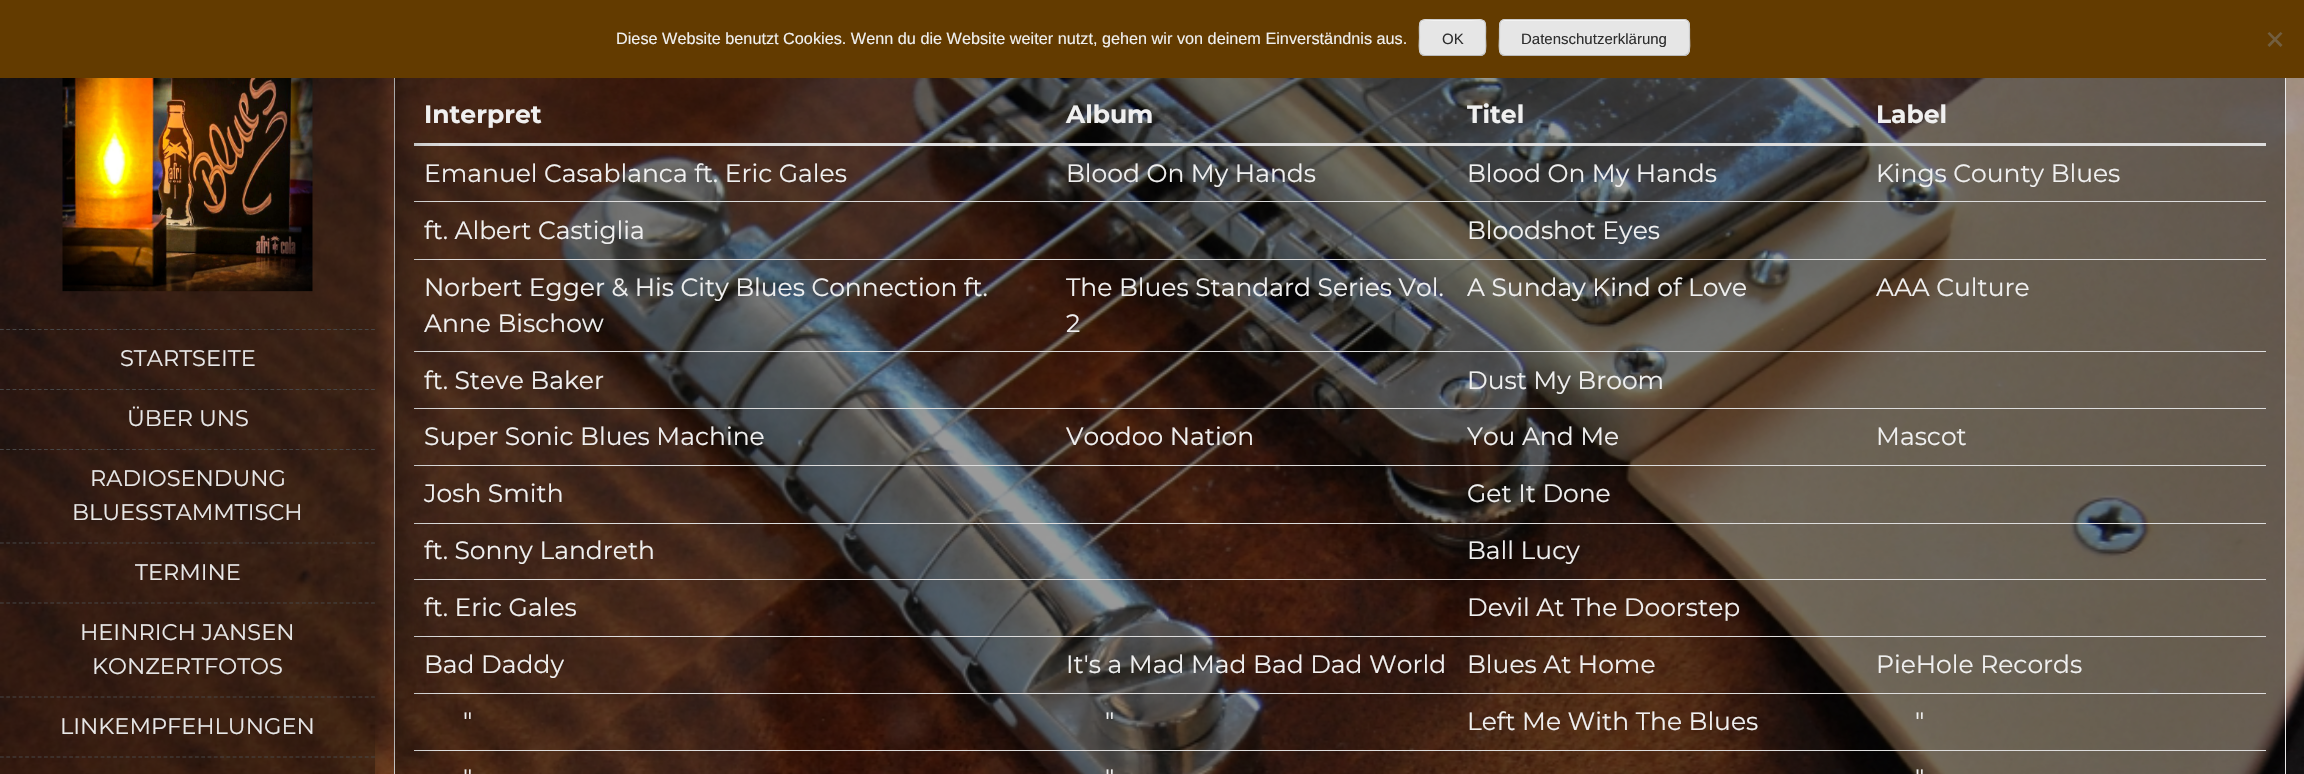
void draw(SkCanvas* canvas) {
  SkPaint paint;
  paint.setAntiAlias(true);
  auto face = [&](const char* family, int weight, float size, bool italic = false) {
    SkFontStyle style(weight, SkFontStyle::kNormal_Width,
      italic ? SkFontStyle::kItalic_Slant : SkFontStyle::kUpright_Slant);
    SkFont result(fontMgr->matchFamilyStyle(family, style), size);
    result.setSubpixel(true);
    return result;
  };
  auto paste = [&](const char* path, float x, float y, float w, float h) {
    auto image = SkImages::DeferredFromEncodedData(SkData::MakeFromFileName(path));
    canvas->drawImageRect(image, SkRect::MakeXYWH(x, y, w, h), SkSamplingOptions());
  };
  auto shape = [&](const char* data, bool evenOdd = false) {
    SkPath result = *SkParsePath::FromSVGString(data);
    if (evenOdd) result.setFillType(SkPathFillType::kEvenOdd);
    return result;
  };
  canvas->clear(0xffffffff);
  paste("img/1.png", 0, 78, 2304, 696);
  paint.setColor(0x66000000);
  canvas->drawRect(SkRect::MakeXYWH(395, 78, 1890, 696), paint);
  paint.setStroke(true);
  paint.setStrokeWidth(1);
  paint.setColor(0xffeaeaea);
  canvas->drawRect(SkRect::MakeXYWH(394.5f, -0.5f, 1891, 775), paint);
  paint.setStroke(false);
  {
    const struct { float x, y, w, h; SkColor color; } items[] = {
      {414, 143, 1852, 3, 0xffdddddd},
      {414, 201, 1852, 1, 0xffdddddd},
      {414, 259, 1852, 1, 0xffdddddd},
      {414, 351, 1852, 1, 0xffdddddd},
      {414, 408, 1852, 1, 0xffdddddd},
      {414, 465, 1852, 1, 0xffdddddd},
      {414, 523, 1852, 1, 0xffdddddd},
      {414, 579, 1852, 1, 0xffdddddd},
      {414, 636, 1852, 1, 0xffdddddd},
      {414, 693, 1852, 1, 0xffdddddd},
      {414, 750, 1852, 1, 0xffdddddd},
    };
    for (auto [x, y, w, h, color] : items) {
      paint.setColor(color);
      canvas->drawRect(SkRect::MakeXYWH(x, y, w, h), paint);
    }
  }
  canvas->save();
  canvas->clipRect(SkRect::MakeXYWH(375, 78, 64, 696));
  paint.setColor(0xff000000);
  paint.setMaskFilter(SkMaskFilter::MakeBlur(kNormal_SkBlurStyle, 31));
  canvas->drawRect(SkRect::MakeXYWH(0, 0, 375, 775), paint);
  paint.setMaskFilter(nullptr);
  canvas->restore();
  paint.setColor(0xff633b00);
  canvas->drawRect(SkRect::MakeXYWH(0, 0, 2304, 78), paint);
  paint.setColor(0xffe6e6e6);
  canvas->drawRoundRect(SkRect::MakeXYWH(1419, 19, 67, 37), 6, 6, paint);
  paint.setColor(0xfff3f3f3);
  canvas->drawPath(shape("M1425 21H1480C1483 21 1485 23 1485 26C1485 18 1477 20 1471 20H1434C1428 20 1420 18 1420 26C1420 23 1422 21 1425 21Z"), paint);
  paint.setStroke(true);
  paint.setStrokeWidth(1.2f);
  paint.setColor(0xffbbbbbb);
  canvas->drawPath(shape("M1484 54C1483 55 1481.5 55.5 1480 55.5H1425C1423.5 55.5 1422 55 1421 54"), paint);
  paint.setColor(0xffcccccc);
  canvas->drawPath(shape("M1421 54C1418 51 1419.5 41.5 1419.5 37.5C1419.5 20 1416.5 19.5 1434 19.5H1471C1488.5 19.5 1485.5 20 1485.5 37.5C1485.5 41.5 1487 51 1484 54"), paint);
  paint.setStroke(false);
  paint.setColor(0xffe6e6e6);
  canvas->drawRoundRect(SkRect::MakeXYWH(1499, 19, 191, 37), 6, 6, paint);
  paint.setColor(0xfff3f3f3);
  canvas->drawPath(shape("M1505 21H1684C1687 21 1689 23 1689 26C1689 23 1688 21 1685 20H1504C1501 21 1500 23 1500 26C1500 23 1502 21 1505 21Z"), paint);
  paint.setStroke(true);
  paint.setColor(0xffbbbbbb);
  canvas->drawPath(shape("M1687.5 54C1686.5 55 1685 55.5 1684 55.5H1505C1503.5 55.5 1502 55 1501 54"), paint);
  paint.setColor(0xffcccccc);
  canvas->drawPath(shape("M1501 54C1498 51 1499.5 41.5 1499.5 37.5V29C1499.5 25 1499.5 19.5 1505 19.5H1684C1689.5 19.5 1689.5 25 1689.5 29V37.5C1689.5 41.5 1691 51 1687.5 54"), paint);
  paint.setStroke(false);
  paint.setColor(0xff725e40);
  canvas->drawPath(shape("M2280.5 32L2282.5 33.5L2269.5 47L2267.5 45Z"), paint);
  canvas->drawPath(shape("M2267.5 33.5L2269.5 32L2282.5 45L2280.5 47Z"), paint);
  paint.setColor(0x80000000);
  canvas->drawRect(SkRect::MakeXYWH(0, 78, 375, 696), paint);
  paste("img/2.png", 62, 78, 251, 214);
  paint.setStroke(true);
  paint.setColor(0xff464646);
  paint.setPathEffect(SkDashPathEffect::Make({{3.75f, 2.54f}}, 0));
  canvas->drawPath(shape("M0 329.5H375"), paint);
  paint.setPathEffect(nullptr);
  paint.setPathEffect(SkDashPathEffect::Make({{3.75f, 2.54f}}, 0));
  canvas->drawPath(shape("M0 389.5H375"), paint);
  paint.setPathEffect(nullptr);
  paint.setPathEffect(SkDashPathEffect::Make({{3.75f, 2.54f}}, 0));
  canvas->drawPath(shape("M0 449.5H375"), paint);
  paint.setPathEffect(nullptr);
  paint.setPathEffect(SkDashPathEffect::Make({{3.75f, 2.54f}}, 0));
  canvas->drawPath(shape("M0 543H375"), paint);
  paint.setPathEffect(nullptr);
  paint.setPathEffect(SkDashPathEffect::Make({{3.75f, 2.54f}}, 0));
  canvas->drawPath(shape("M0 603H375"), paint);
  paint.setPathEffect(nullptr);
  paint.setPathEffect(SkDashPathEffect::Make({{3.75f, 2.54f}}, 0));
  canvas->drawPath(shape("M0 697H375"), paint);
  paint.setPathEffect(nullptr);
  paint.setPathEffect(SkDashPathEffect::Make({{3.75f, 2.54f}}, 0));
  canvas->drawPath(shape("M0 757H375"), paint);
  paint.setPathEffect(nullptr);
  auto f0 = face("Liberation Sans", 400, 16.25f);
  paint.setStroke(false);
  paint.setColor(0xfff0f0f0);
  canvas->drawString("Diese Website benutzt Cookies. Wenn du die Website weiter nutzt, gehen wir von deinem Einverständnis aus.", 616, 44, f0, paint);
  auto f1 = face("Liberation Sans", 400, 15);
  paint.setColor(0xff2e2e2e);
  canvas->drawString("OK", 1442, 44, f1, paint);
  canvas->drawString("Datenschutzerklärung", 1521, 44, f1, paint);
  auto f2 = face("Montserrat", 400, 22.5f);
  paint.setColor(0xffe8e8e8);
  {
    const struct { const char* s; float x, y; } items[] = {
      {"STARTSEITE", 120, 366},
      {"ÜBER UNS", 127, 426},
      {"RADIOSENDUNG", 90, 486},
      {"BLUESSTAMMTISCH", 72, 520},
      {"TERMINE", 135, 580},
      {"HEINRICH JANSEN", 80, 640},
      {"KONZERTFOTOS", 92, 674},
      {"LINKEMPFEHLUNGEN", 60, 734},
    };
    for (auto [s, x, y] : items) {
      canvas->drawString(s, x, y, f2, paint);
    }
  }
  auto f3 = face("Montserrat", 700, 25);
  paint.setColor(0xfff0f0f0);
  {
    const struct { const char* s; float x, y; } items[] = {
      {"Interpret", 424, 123},
      {"Album", 1066, 123},
      {"Titel", 1467, 123},
      {"Label", 1876, 123},
    };
    for (auto [s, x, y] : items) {
      canvas->drawString(s, x, y, f3, paint);
    }
  }
  auto f4 = face("Montserrat", 400, 25);
  {
    const struct { const char* s; float x, y; } items[] = {
      {"Emanuel Casablanca ft. Eric Gales", 424, 182},
      {"Blood On My Hands", 1066, 182},
      {"Blood On My Hands", 1467, 182},
      {"Kings County Blues", 1876, 182},
      {"ft. Albert Castiglia", 424, 239},
      {"Bloodshot Eyes", 1467, 239},
      {"Norbert Egger & His City Blues Connection ft.", 424, 296},
      {"Anne Bischow", 424, 332},
      {"The Blues Standard Series Vol.", 1066, 296},
      {"2", 1066, 332},
      {"A Sunday Kind of Love", 1467, 296},
      {"AAA Culture", 1876, 296},
      {"ft. Steve Baker", 424, 389},
      {"Dust My Broom", 1467, 389},
      {"Super Sonic Blues Machine", 424, 445},
      {"Voodoo Nation", 1066, 445},
      {"You And Me", 1467, 445},
      {"Mascot", 1876, 445},
      {"Josh Smith", 424, 502},
      {"Get It Done", 1467, 502},
      {"ft. Sonny Landreth", 424, 559},
      {"Ball Lucy", 1467, 559},
      {"ft. Eric Gales", 424, 616},
      {"Devil At The Doorstep", 1467, 616},
      {"Bad Daddy", 424, 673},
      {"It's a Mad Mad Bad Dad World", 1066, 673},
      {"Blues At Home", 1467, 673},
      {"PieHole Records", 1876, 673},
      {"\"", 463, 730},
      {"\"", 1105, 730},
      {"Left Me With The Blues", 1467, 730},
      {"\"", 1915, 730},
      {"\"", 463, 787},
      {"\"", 1105, 787},
      {"\"", 1915, 787},
    };
    for (auto [s, x, y] : items) {
      canvas->drawString(s, x, y, f4, paint);
    }
  }
}
